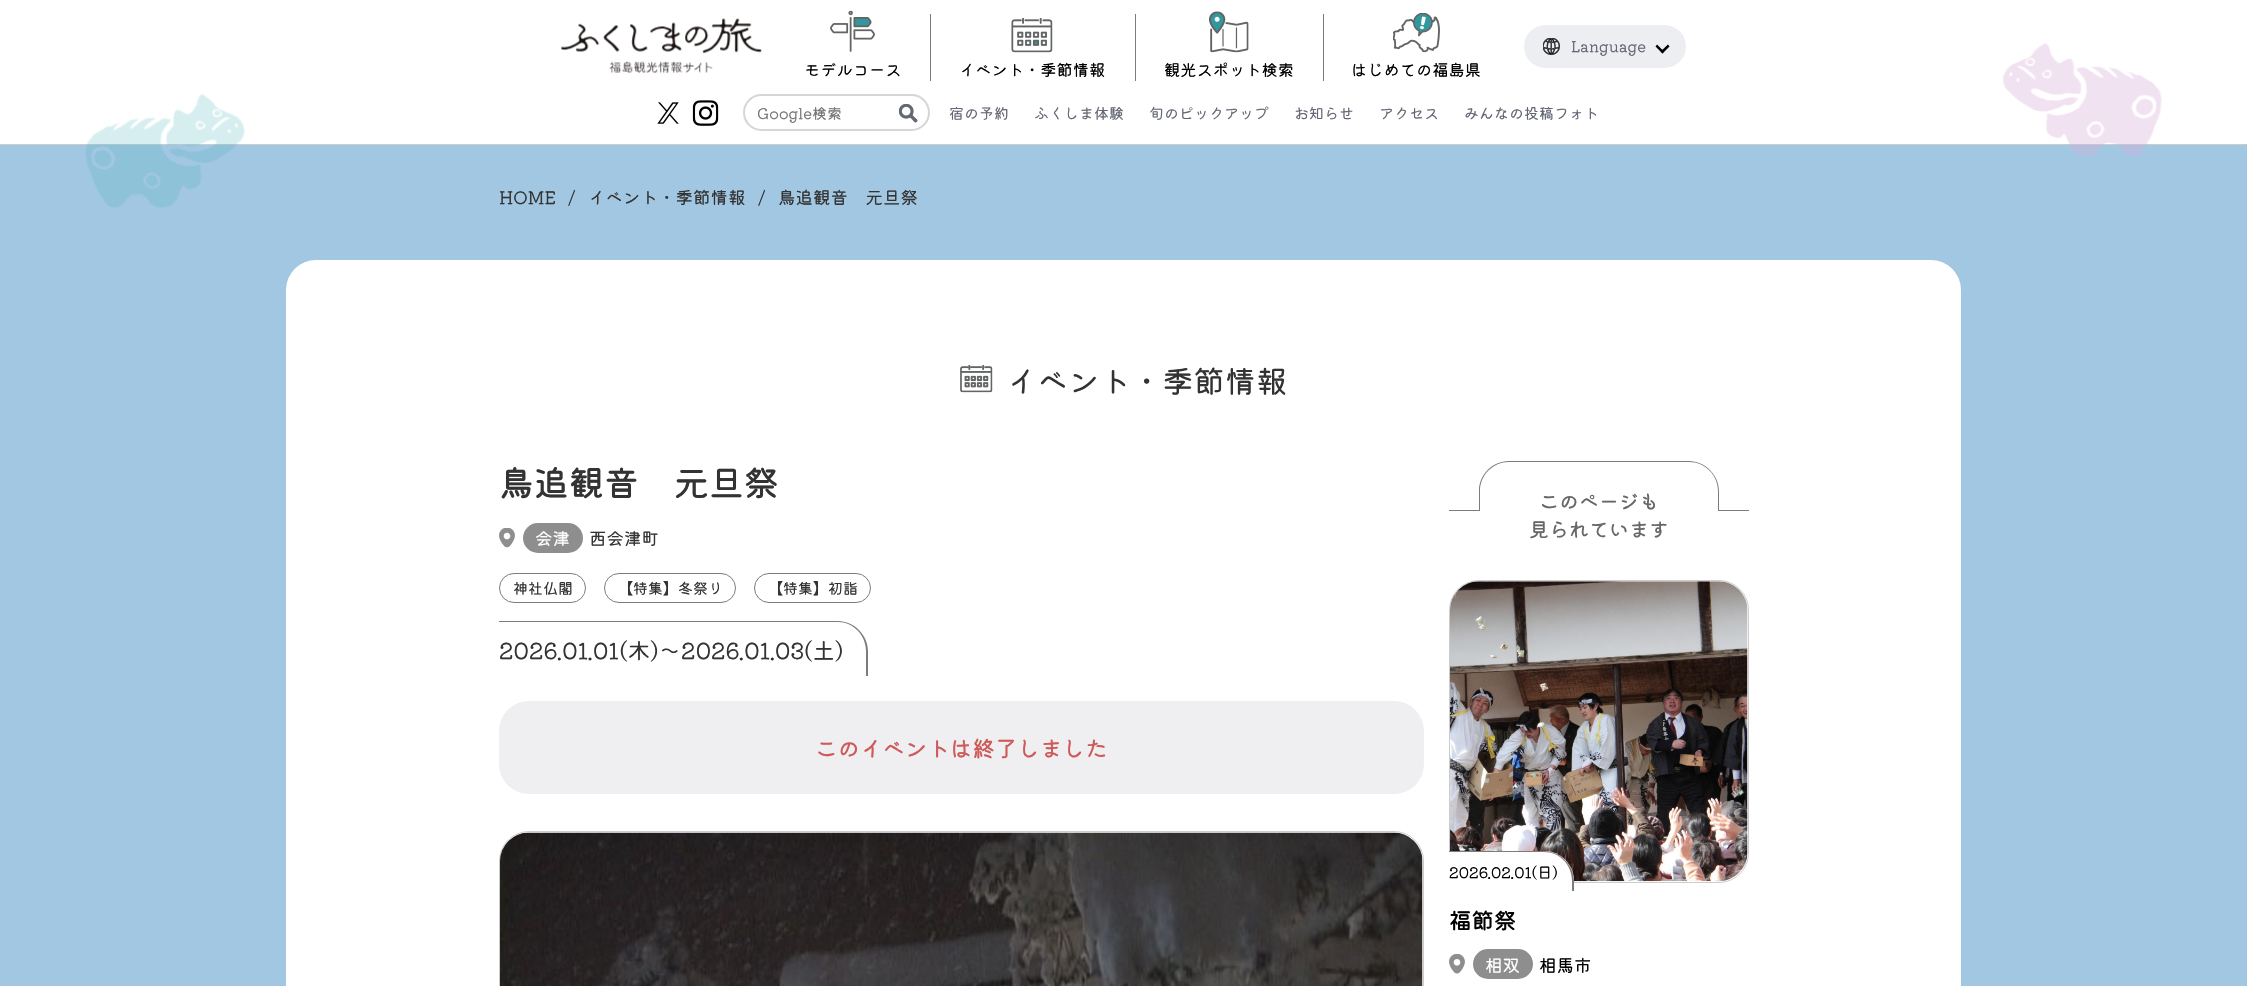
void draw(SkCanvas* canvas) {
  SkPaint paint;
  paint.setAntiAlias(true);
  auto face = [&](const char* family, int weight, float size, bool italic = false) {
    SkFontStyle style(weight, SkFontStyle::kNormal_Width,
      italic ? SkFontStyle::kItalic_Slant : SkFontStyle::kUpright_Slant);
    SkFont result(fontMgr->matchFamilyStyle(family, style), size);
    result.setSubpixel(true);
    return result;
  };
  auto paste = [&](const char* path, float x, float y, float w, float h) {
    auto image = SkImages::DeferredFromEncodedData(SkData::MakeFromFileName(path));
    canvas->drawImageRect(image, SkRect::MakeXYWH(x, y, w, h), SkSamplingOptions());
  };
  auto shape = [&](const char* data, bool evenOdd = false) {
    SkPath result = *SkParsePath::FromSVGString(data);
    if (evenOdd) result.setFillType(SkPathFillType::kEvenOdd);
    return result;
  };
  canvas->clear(0xffffffff);
  paint.setColor(0xffcccccc);
  canvas->drawRect(SkRect::MakeXYWH(0, 144, 2247, 1), paint);
  paint.setColor(0xffa2c7e2);
  canvas->drawRect(SkRect::MakeXYWH(0, 145, 2247, 841), paint);
  paste("img/1.png", 85, 94, 160, 114);
  paste("img/2.png", 561, 18, 201, 55);
  paint.setColor(0xffedeef2);
  canvas->drawRoundRect(SkRect::MakeXYWH(1524, 25, 162, 43), 21.5f, 21.5f, paint);
  paste("img/3.png", 1543, 38, 17, 17);
  paint.setColor(0xff000000);
  canvas->drawPath(shape("M1669.5 46.5L1662.5 53.5L1660.5 51.5L1668 44.5Z"), paint);
  canvas->drawPath(shape("M1664 51.5L1662.5 53.5L1655.5 46.5L1657 44.5Z"), paint);
  paste("img/4.png", 830, 10, 45, 42);
  paint.setColor(0xff7c7c7c);
  canvas->drawRect(SkRect::MakeXYWH(930, 14, 1, 67), paint);
  paste("img/5.png", 1011, 18, 42, 35);
  canvas->drawRect(SkRect::MakeXYWH(1135, 14, 1, 67), paint);
  paste("img/6.png", 1209, 11, 40, 42);
  canvas->drawRect(SkRect::MakeXYWH(1323, 14, 1, 67), paint);
  paste("img/7.png", 1393, 13, 47, 40);
  paste("img/8.png", 657, 102, 22, 22);
  paste("img/9.png", 692, 100, 27, 26);
  paint.setStroke(true);
  paint.setStrokeWidth(3);
  paint.setColor(0xffd6d6d6);
  canvas->drawRoundRect(SkRect::MakeXYWH(744.5f, 95.5f, 184, 34), 17, 17, paint);
  paint.setStroke(false);
  paint.setColor(0xffffffff);
  canvas->drawPath(shape("M761.5 96H895V129H761.5C752.5 129 745 121.5 745 112.5C745 103.5 752.5 96 761.5 96Z"), paint);
  canvas->drawPath(shape("M895 96H911.5C920.5 96 928 103.5 928 112.5C928 121.5 920.5 129 911.5 129H895Z"), paint);
  paste("img/10.png", 899, 104, 19, 19);
  paste("img/11.png", 2002, 43, 160, 113);
  canvas->drawRoundRect(SkRect::MakeXYWH(286, 260, 1675, 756), 30, 30, paint);
  paste("img/12.png", 960, 365, 33, 28);
  paste("img/13.png", 499, 528, 16, 20);
  paint.setColor(0xff8e8e8f);
  canvas->drawRoundRect(SkRect::MakeXYWH(523, 523, 60, 30), 15, 15, paint);
  paint.setStroke(true);
  paint.setStrokeWidth(1);
  paint.setColor(0xff7c7c7c);
  canvas->drawRoundRect(SkRect::MakeXYWH(499.5f, 573.5f, 86, 29), 14.5f, 14.5f, paint);
  canvas->drawRoundRect(SkRect::MakeXYWH(604.5f, 573.5f, 131, 29), 14.5f, 14.5f, paint);
  canvas->drawRoundRect(SkRect::MakeXYWH(754.5f, 573.5f, 116, 29), 14.5f, 14.5f, paint);
  paint.setStroke(false);
  canvas->drawPath(shape("M499 621H838C854 621 868 635 868 651V676H499ZM499 622H838C853 622 866 635 866 651V676H499Z", true), paint);
  paint.setColor(0xffefeff2);
  canvas->drawRoundRect(SkRect::MakeXYWH(499, 701, 925, 93), 30, 30, paint);
  paint.setStroke(true);
  paint.setColor(0xffcccccc);
  canvas->drawRoundRect(SkRect::MakeXYWH(499.5f, 831.5f, 924, 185), 29.5f, 29.5f, paint);
  paste("img/14.png", 500, 832, 923, 154);
  paint.setStroke(false);
  paint.setColor(0xff7c7c7c);
  canvas->drawRect(SkRect::MakeXYWH(1449, 510, 300, 1), paint);
  paint.setColor(0xffffffff);
  canvas->drawPath(shape("M1509 461H1689C1705.5 461 1719 474.5 1719 491V511H1479V491C1479 474.5 1492.5 461 1509 461Z"), paint);
  paint.setColor(0xff7c7c7c);
  canvas->drawPath(shape("M1509 461H1689C1705 461 1719 475 1719 491V511H1479V491C1479 475 1492 461 1509 461ZM1509 462H1689C1705 462 1718 475 1718 491V511H1480V491C1480 475 1493 462 1509 462Z", true), paint);
  paint.setStroke(true);
  paint.setColor(0xffcccccc);
  canvas->drawRoundRect(SkRect::MakeXYWH(1449.5f, 580.5f, 299, 302), 29.5f, 29.5f, paint);
  paste("img/15.png", 1450, 581, 298, 301);
  paint.setStroke(false);
  paint.setColor(0xffffffff);
  canvas->drawPath(shape("M1449 851H1544C1560.5 851 1574 864.5 1574 881V891H1449Z"), paint);
  paint.setColor(0xff7c7c7c);
  canvas->drawPath(shape("M1449 851H1544C1560 851 1574 865 1574 881V891H1449ZM1449 852H1544C1560 852 1572 865 1572 881V891H1449Z", true), paint);
  paste("img/16.png", 1449, 954, 16, 20);
  paint.setColor(0xff8e8e8f);
  canvas->drawRoundRect(SkRect::MakeXYWH(1473, 949, 60, 30), 15, 15, paint);
  auto f0 = face("Kiwi Maru", 400, 15);
  paint.setColor(0xff646774);
  canvas->drawString("Language", 1571, 52, f0, paint);
  auto f1 = face("Kiwi Maru", 400, 16.25f);
  paint.setColor(0xff000000);
  {
    const struct { const char* s; float x, y; } items[] = {
      {"モデルコース", 804, 76},
      {"イベント・季節情報", 959, 76},
      {"観光スポット検索", 1164, 76},
      {"はじめての福島県", 1351, 76},
    };
    for (auto [s, x, y] : items) {
      canvas->drawString(s, x, y, f1, paint);
    }
  }
  paint.setColor(0xff757575);
  canvas->drawString("Google検索", 757, 119, f0, paint);
  paint.setColor(0xff646774);
  {
    const struct { const char* s; float x, y; } items[] = {
      {"宿の予約", 949, 119},
      {"ふくしま体験", 1034, 119},
      {"旬のピックアップ", 1149, 119},
      {"お知らせ", 1294, 119},
      {"アクセス", 1379, 119},
      {"みんなの投稿フォト", 1464, 119},
    };
    for (auto [s, x, y] : items) {
      canvas->drawString(s, x, y, f0, paint);
    }
  }
  auto f2 = face("Kiwi Maru", 400, 17.5f);
  paint.setColor(0xff333333);
  canvas->drawString("HOME", 499, 204, f2, paint);
  auto f3 = face("Kiwi Maru", 400, 20);
  canvas->drawString("/", 568, 205, f3, paint);
  canvas->drawString("イベント・季節情報", 588, 204, f2, paint);
  canvas->drawString("/", 758, 205, f3, paint);
  canvas->drawString("鳥追観音　元旦祭", 778, 204, f2, paint);
  auto f4 = face("Kiwi Maru", 400, 31.25f);
  canvas->drawString("イベント・季節情報", 1006, 393, f4, paint);
  auto f5 = face("Kiwi Maru", 500, 35);
  canvas->drawString("鳥追観音　元旦祭", 499, 496, f5, paint);
  paint.setColor(0xffffffff);
  canvas->drawString("会津", 535, 545, f2, paint);
  paint.setColor(0xff333333);
  canvas->drawString("西会津町", 589, 545, f2, paint);
  {
    const struct { const char* s; float x, y; } items[] = {
      {"神社仏閣", 513, 594},
      {"【特集】冬祭り", 618, 594},
      {"【特集】初詣", 768, 594},
    };
    for (auto [s, x, y] : items) {
      canvas->drawString(s, x, y, f0, paint);
    }
  }
  auto f6 = face("Kiwi Maru", 400, 22.5f);
  canvas->drawString("2026.01.01(木)～2026.01.03(土)", 499, 659, f6, paint);
  auto f7 = face("Kiwi Maru", 500, 22.5f);
  paint.setColor(0xffce5a5a);
  canvas->drawString("このイベントは終了しました", 815, 757, f7, paint);
  auto f8 = face("Kiwi Maru", 500, 20);
  paint.setColor(0xff676767);
  canvas->drawString("このページも", 1539, 509, f8, paint);
  canvas->drawString("見られています", 1529, 537, f8, paint);
  paint.setColor(0xff000000);
  canvas->drawString("2026.02.01(日)", 1449, 878, f0, paint);
  canvas->drawString("福節祭", 1449, 929, f7, paint);
  paint.setColor(0xffffffff);
  canvas->drawString("相双", 1485, 972, f2, paint);
  paint.setColor(0xff000000);
  canvas->drawString("相馬市", 1539, 972, f2, paint);
}
